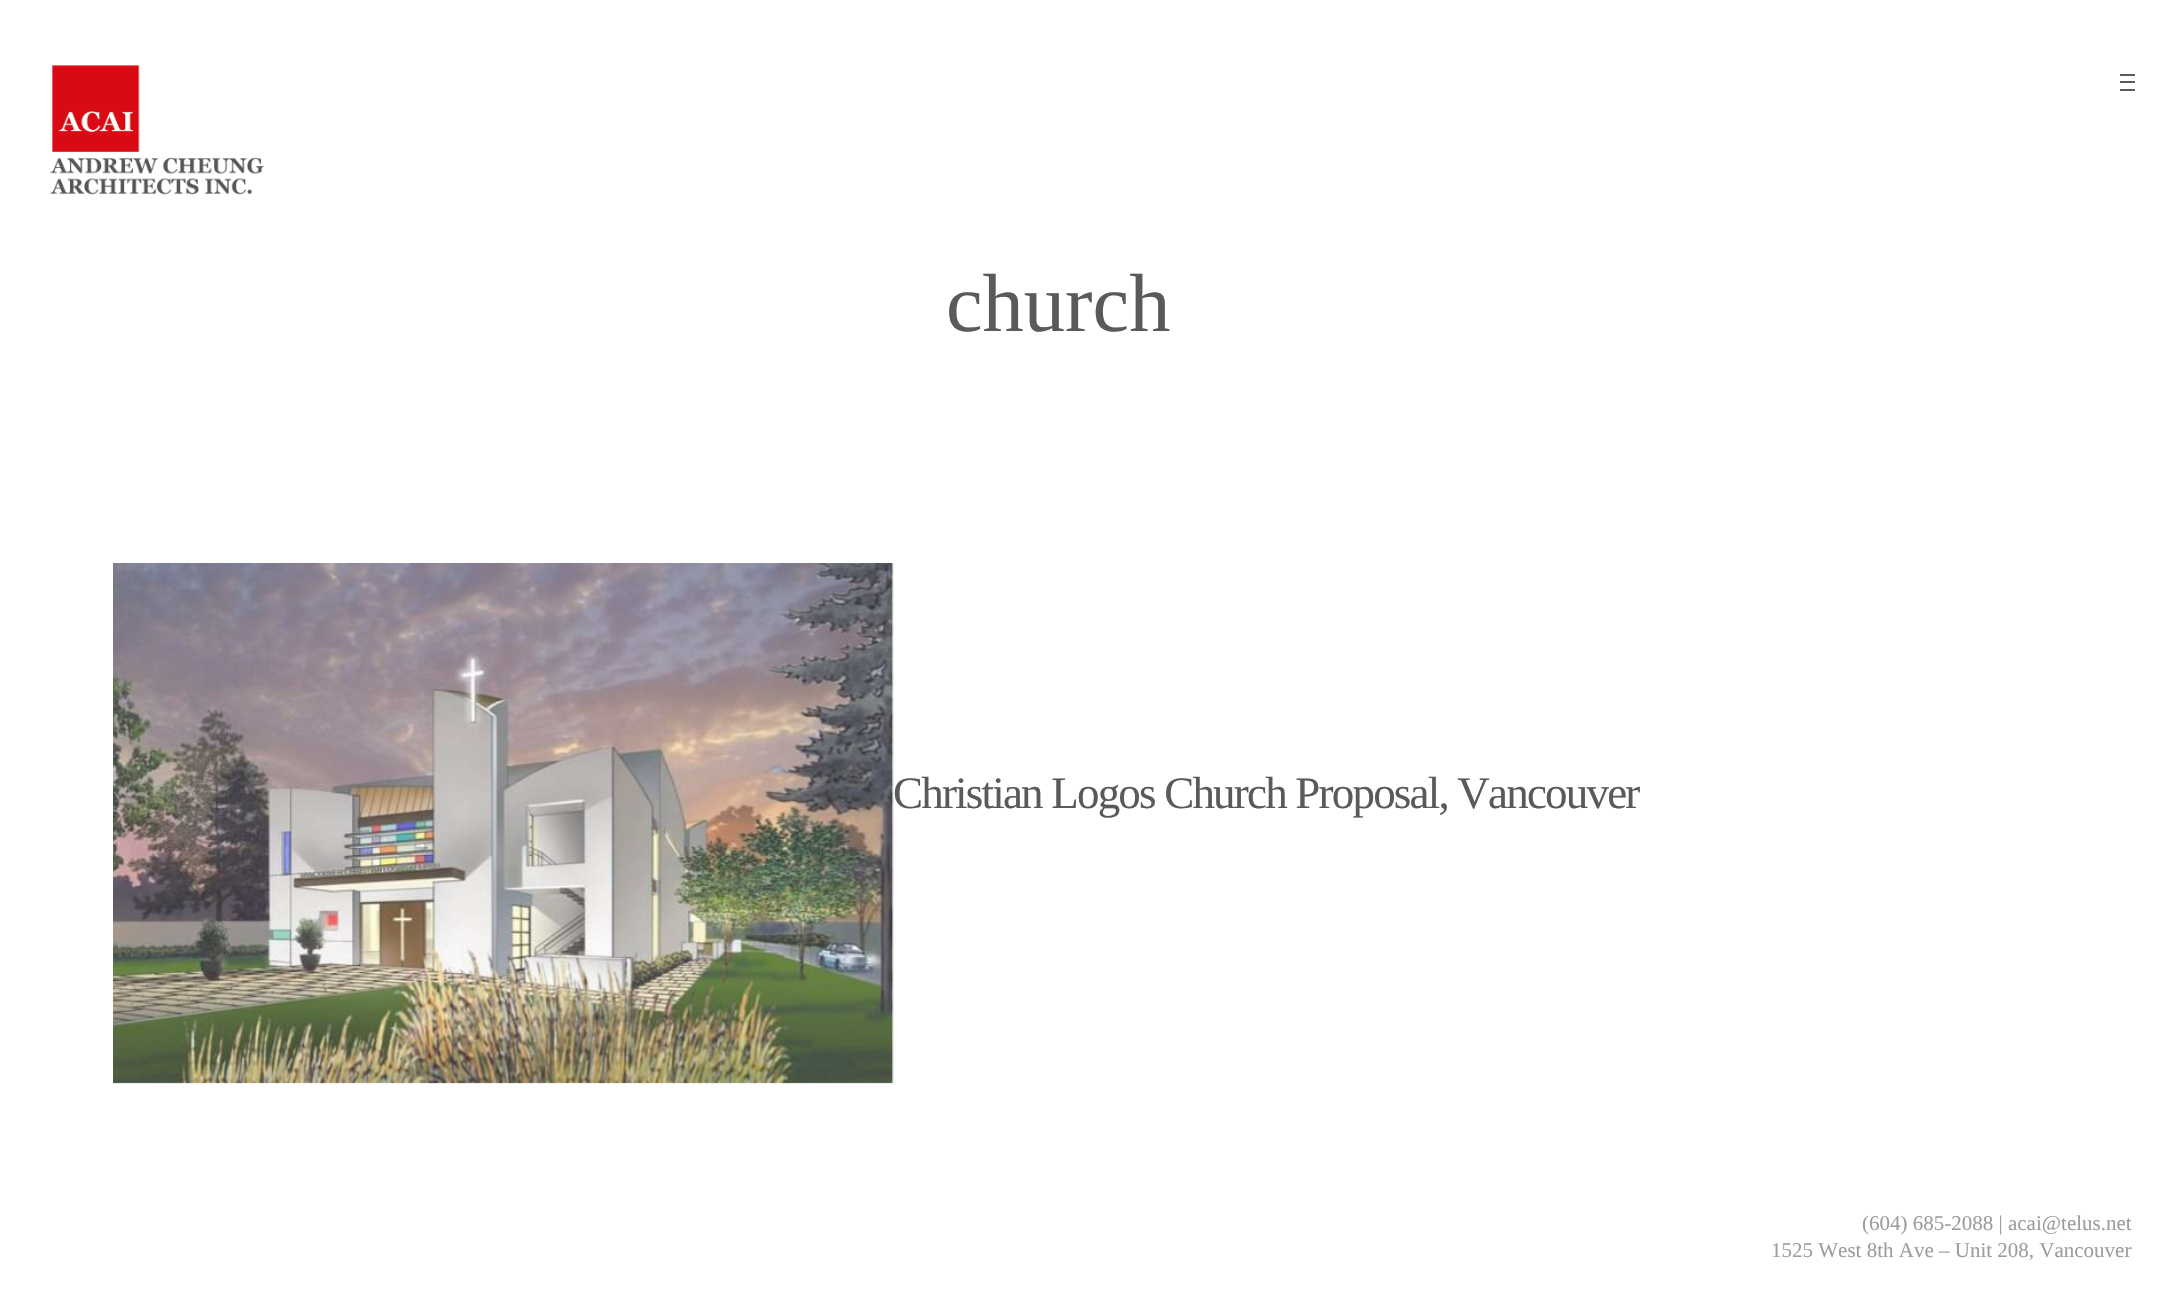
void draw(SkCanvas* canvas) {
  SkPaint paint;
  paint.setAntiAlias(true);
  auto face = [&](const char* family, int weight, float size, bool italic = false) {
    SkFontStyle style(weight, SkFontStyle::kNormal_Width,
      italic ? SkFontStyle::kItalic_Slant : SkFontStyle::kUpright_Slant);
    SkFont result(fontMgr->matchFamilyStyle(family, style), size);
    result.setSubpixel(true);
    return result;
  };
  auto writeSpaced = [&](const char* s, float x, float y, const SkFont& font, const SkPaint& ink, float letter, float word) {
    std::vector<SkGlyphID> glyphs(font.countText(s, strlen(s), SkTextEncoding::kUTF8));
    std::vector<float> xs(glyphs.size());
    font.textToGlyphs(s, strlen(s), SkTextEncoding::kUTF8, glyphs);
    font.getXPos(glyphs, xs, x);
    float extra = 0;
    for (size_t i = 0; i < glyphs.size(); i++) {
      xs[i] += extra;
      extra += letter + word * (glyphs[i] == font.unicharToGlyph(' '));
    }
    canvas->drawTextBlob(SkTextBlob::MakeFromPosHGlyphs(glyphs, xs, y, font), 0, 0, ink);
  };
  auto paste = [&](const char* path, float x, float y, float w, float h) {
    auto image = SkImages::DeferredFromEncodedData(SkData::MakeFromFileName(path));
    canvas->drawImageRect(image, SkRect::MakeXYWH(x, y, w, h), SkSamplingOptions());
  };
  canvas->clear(0xffffffff);
  paste("img/1.png", 50, 65, 214, 130);
  {
    const struct { float x, y, w, h; SkColor color; } items[] = {
      {2120, 74, 15, 2, 0xff5b5b5b},
      {2120, 81, 15, 2, 0xff5b5b5b},
      {2120, 89, 15, 2, 0xff5b5b5b},
    };
    for (auto [x, y, w, h, color] : items) {
      paint.setColor(color);
      canvas->drawRect(SkRect::MakeXYWH(x, y, w, h), paint);
    }
  }
  paste("img/2.png", 113, 563, 781, 521);
  auto f0 = face("Liberation Serif", 400, 82.5f);
  paint.setColor(0xff5a5a5a);
  canvas->drawString("church", 946, 331, f0, paint);
  auto f1 = face("Liberation Serif", 400, 45);
  writeSpaced("Christian Logos Church Proposal, Vancouver", 893, 808, f1, paint, -1.8f, 0);
  auto f2 = face("Liberation Serif", 400, 21);
  paint.setColor(0xff9d9d9d);
  canvas->drawString("(604) 685-2088 | acai@telus.net", 1862, 1230, f2, paint);
  canvas->drawString("1525 West 8th Ave – Unit 208, Vancouver", 1771, 1257, f2, paint);
}
